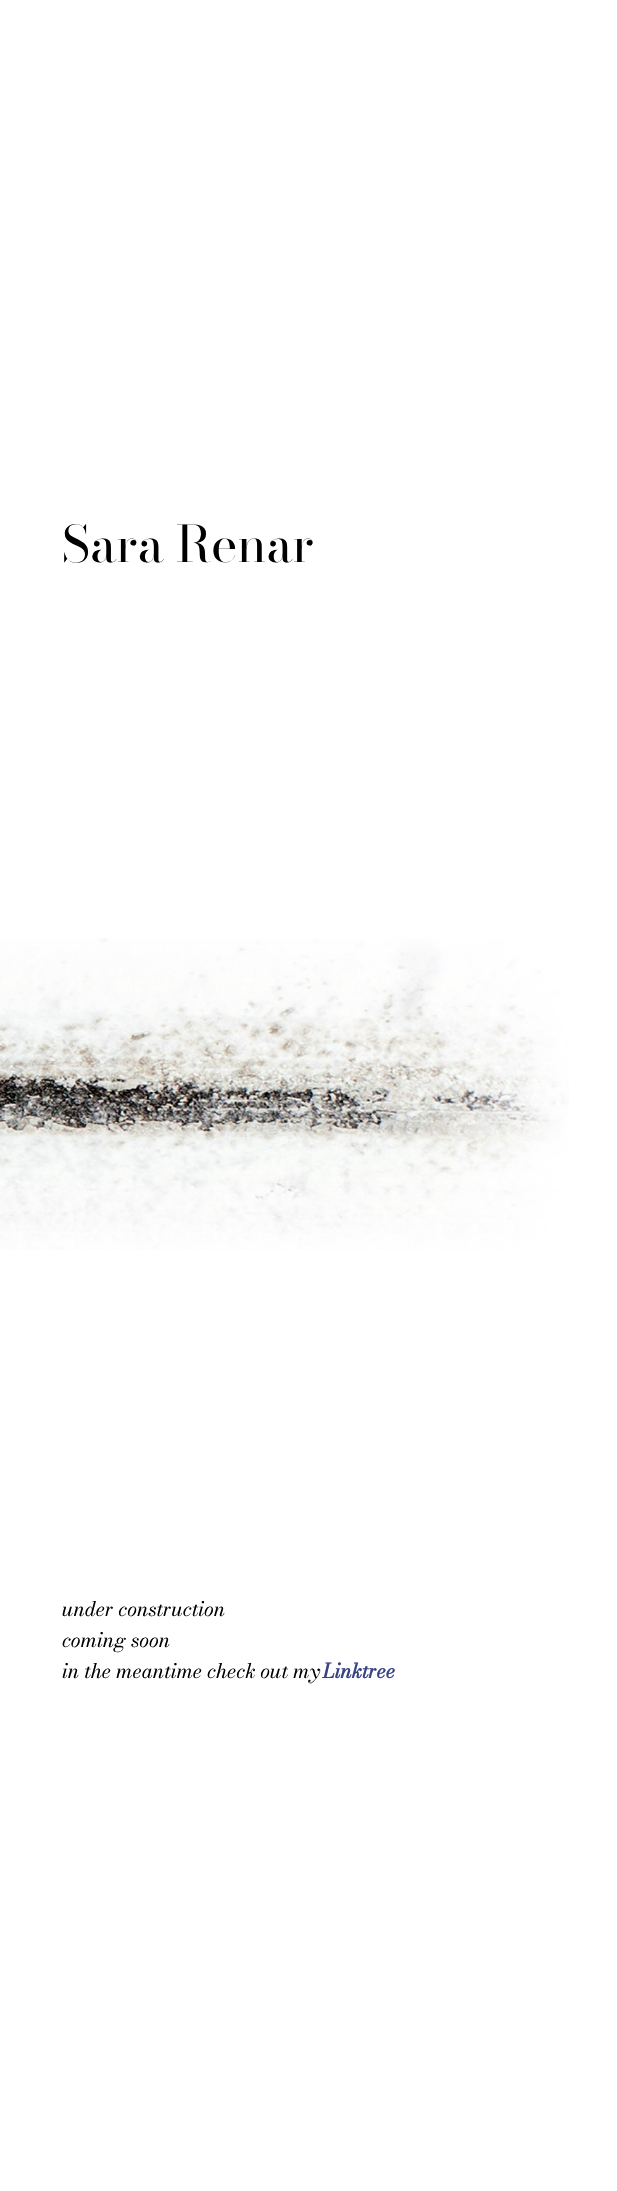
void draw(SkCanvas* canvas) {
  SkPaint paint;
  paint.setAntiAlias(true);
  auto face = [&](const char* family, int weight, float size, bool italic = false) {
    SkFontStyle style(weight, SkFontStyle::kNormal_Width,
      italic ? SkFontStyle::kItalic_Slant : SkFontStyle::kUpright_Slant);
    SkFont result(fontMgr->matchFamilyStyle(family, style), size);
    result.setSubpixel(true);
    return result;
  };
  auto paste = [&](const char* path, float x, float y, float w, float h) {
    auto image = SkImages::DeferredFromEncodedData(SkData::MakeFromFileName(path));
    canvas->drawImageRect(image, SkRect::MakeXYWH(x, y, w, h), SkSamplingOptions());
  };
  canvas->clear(0xffffffff);
  paste("img/1.png", 0, 938, 569, 312);
  auto f0 = face("Bodoni Moda", 400, 50);
  paint.setColor(0xff000000);
  canvas->drawString("Sara Renar", 62, 562, f0, paint);
  auto f1 = face("Bodoni Moda", 400, 20, true);
  {
    const struct { const char* s; float x, y; } items[] = {
      {"under construction", 62, 1616},
      {"coming soon", 62, 1647},
      {"in the meantime check out my", 62, 1678},
    };
    for (auto [s, x, y] : items) {
      canvas->drawString(s, x, y, f1, paint);
    }
  }
  auto f2 = face("Bodoni Moda", 700, 20, true);
  paint.setColor(0xff394485);
  canvas->drawString("Linktree", 323, 1678, f2, paint);
}
